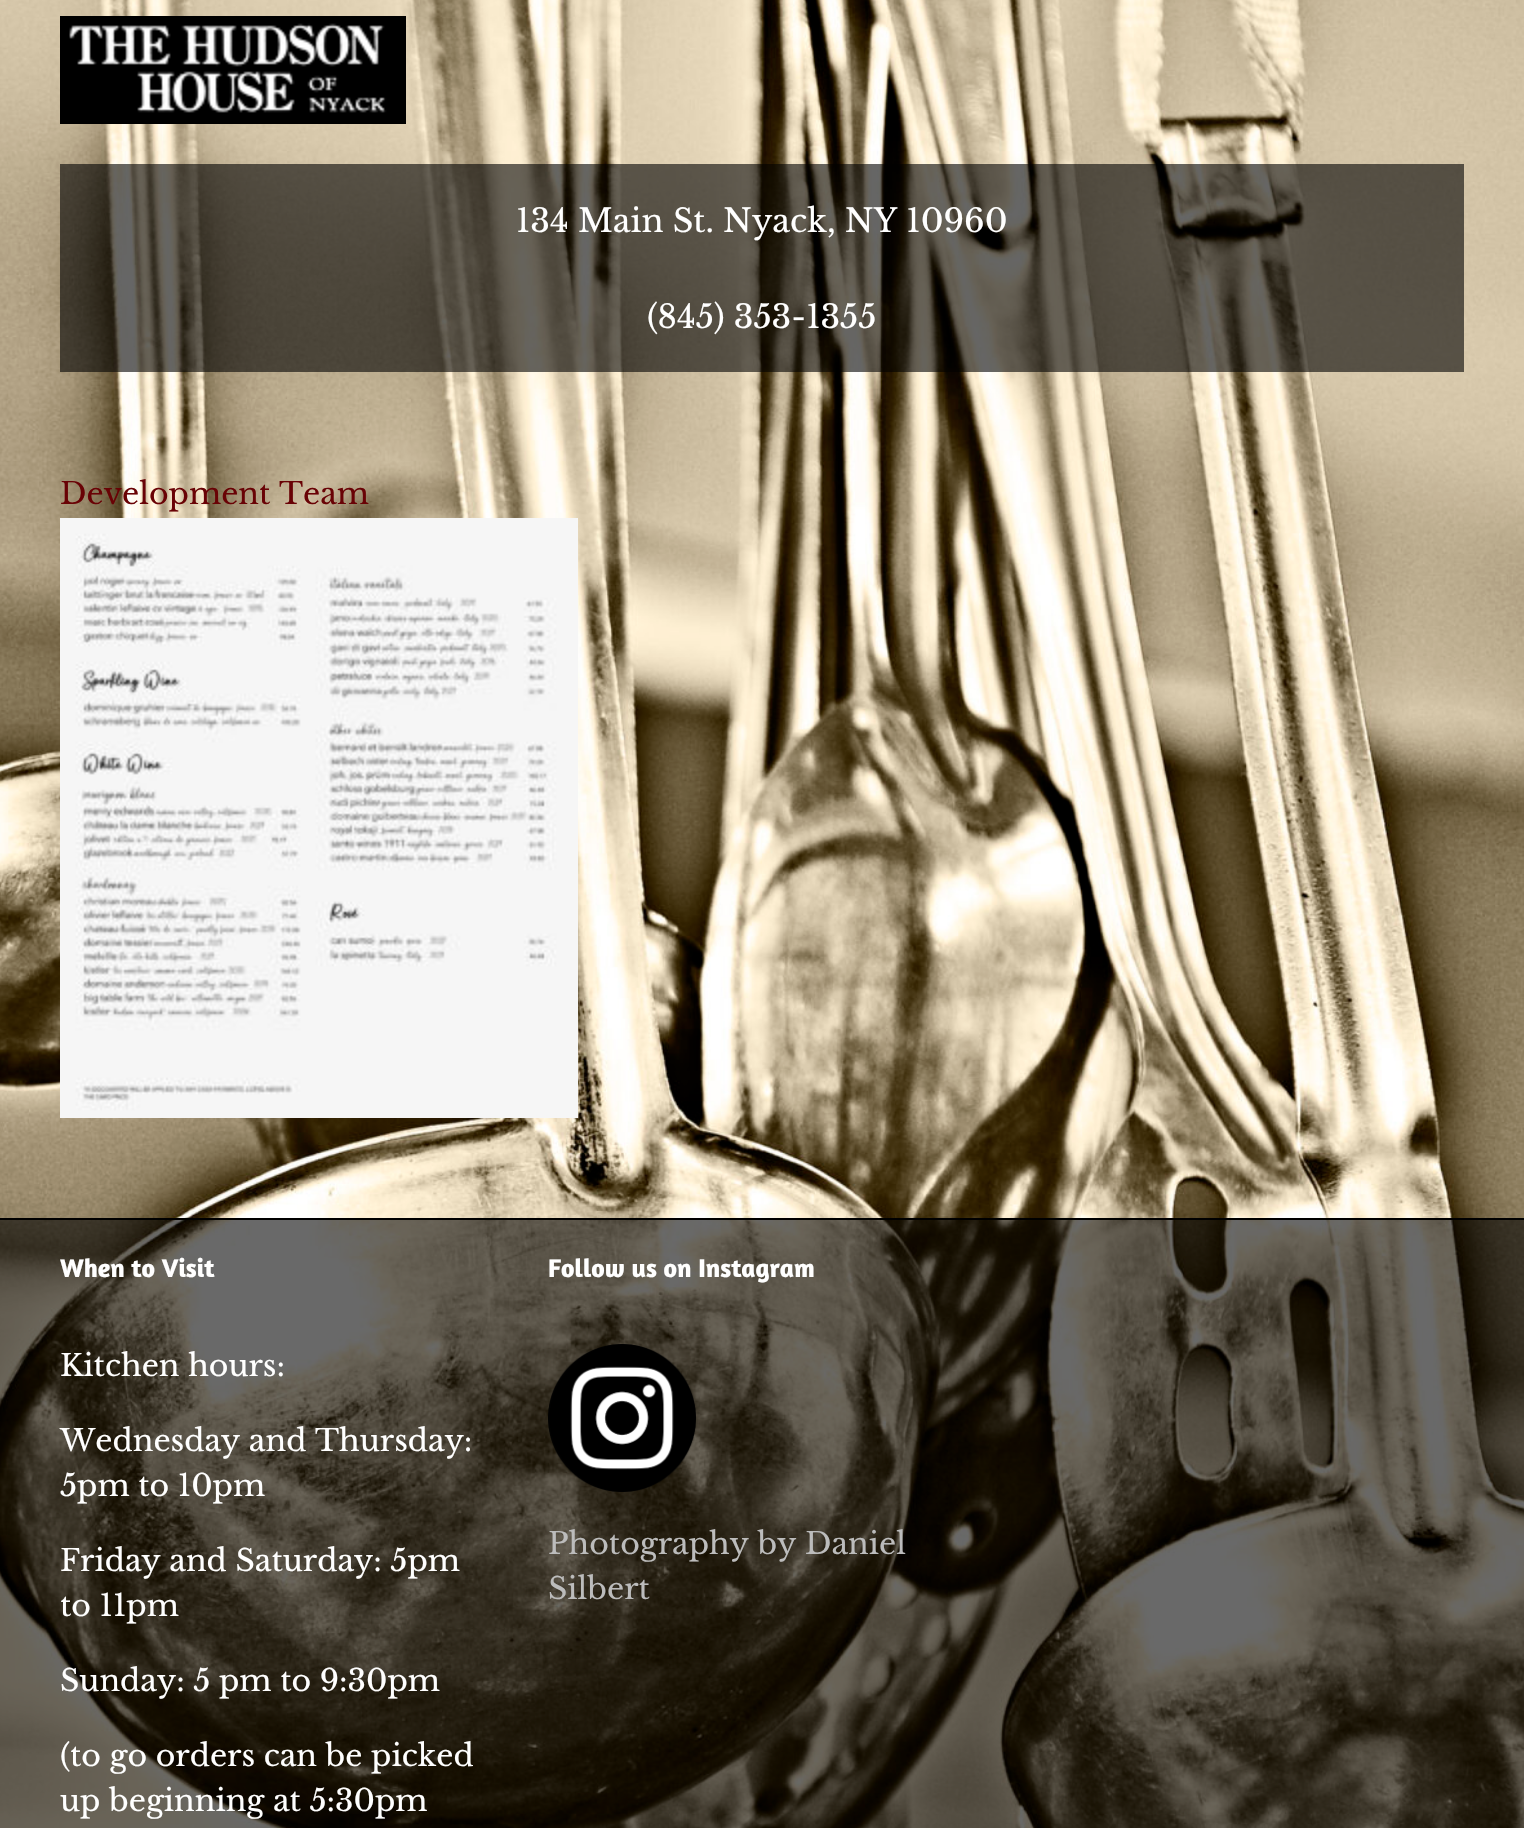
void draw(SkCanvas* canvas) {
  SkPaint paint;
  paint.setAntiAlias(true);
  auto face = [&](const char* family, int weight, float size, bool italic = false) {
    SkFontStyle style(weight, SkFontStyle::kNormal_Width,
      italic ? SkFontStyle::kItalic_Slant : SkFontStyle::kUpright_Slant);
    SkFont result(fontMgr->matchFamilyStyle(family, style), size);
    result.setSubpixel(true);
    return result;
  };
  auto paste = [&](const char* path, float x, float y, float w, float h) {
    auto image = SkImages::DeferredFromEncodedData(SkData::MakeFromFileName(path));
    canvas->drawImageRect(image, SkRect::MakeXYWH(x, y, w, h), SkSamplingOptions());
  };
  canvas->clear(0xffffffff);
  paste("img/1.png", 0, 0, 1524, 1828);
  paste("img/2.png", 60, 16, 346, 108);
  paint.setColor(0x99000000);
  canvas->drawRect(SkRect::MakeXYWH(60, 164, 1404, 208), paint);
  paste("img/3.png", 60, 518, 518, 600);
  paint.setColor(0x96000000);
  canvas->drawRect(SkRect::MakeXYWH(0, 1220, 1524, 608), paint);
  paint.setColor(0xff000000);
  canvas->drawRect(SkRect::MakeXYWH(0, 1218, 1524, 2), paint);
  paste("img/4.png", 548, 1344, 148, 148);
  auto f0 = face("Libre Baskerville", 400, 32);
  paint.setColor(0xffffffff);
  canvas->drawString("134 Main St. Nyack, NY 10960", 516, 232, f0, paint);
  canvas->drawString("(845) 353-1355", 647, 328, f0, paint);
  auto f1 = face("Libre Baskerville", 400, 30);
  paint.setColor(0xff690205);
  canvas->drawString("Development Team", 60, 504, f1, paint);
  auto f2 = face("Amaranth", 700, 26);
  paint.setColor(0xffffffff);
  canvas->drawString("When to Visit", 60, 1277, f2, paint);
  {
    const struct { const char* s; float x, y; } items[] = {
      {"Kitchen hours:", 60, 1376},
      {"Wednesday and Thursday:", 60, 1451},
      {"5pm to 10pm", 60, 1496},
      {"Friday and Saturday: 5pm", 60, 1571},
      {"to 11pm", 60, 1616},
      {"Sunday: 5 pm to 9:30pm", 60, 1691},
      {"(to go orders can be picked", 60, 1766},
      {"up beginning at 5:30pm", 60, 1811},
    };
    for (auto [s, x, y] : items) {
      canvas->drawString(s, x, y, f1, paint);
    }
  }
  canvas->drawString("Follow us on Instagram", 548, 1277, f2, paint);
  paint.setColor(0xffbcbcbc);
  canvas->drawString("Photography by Daniel", 548, 1554, f1, paint);
  canvas->drawString("Silbert", 548, 1599, f1, paint);
}
